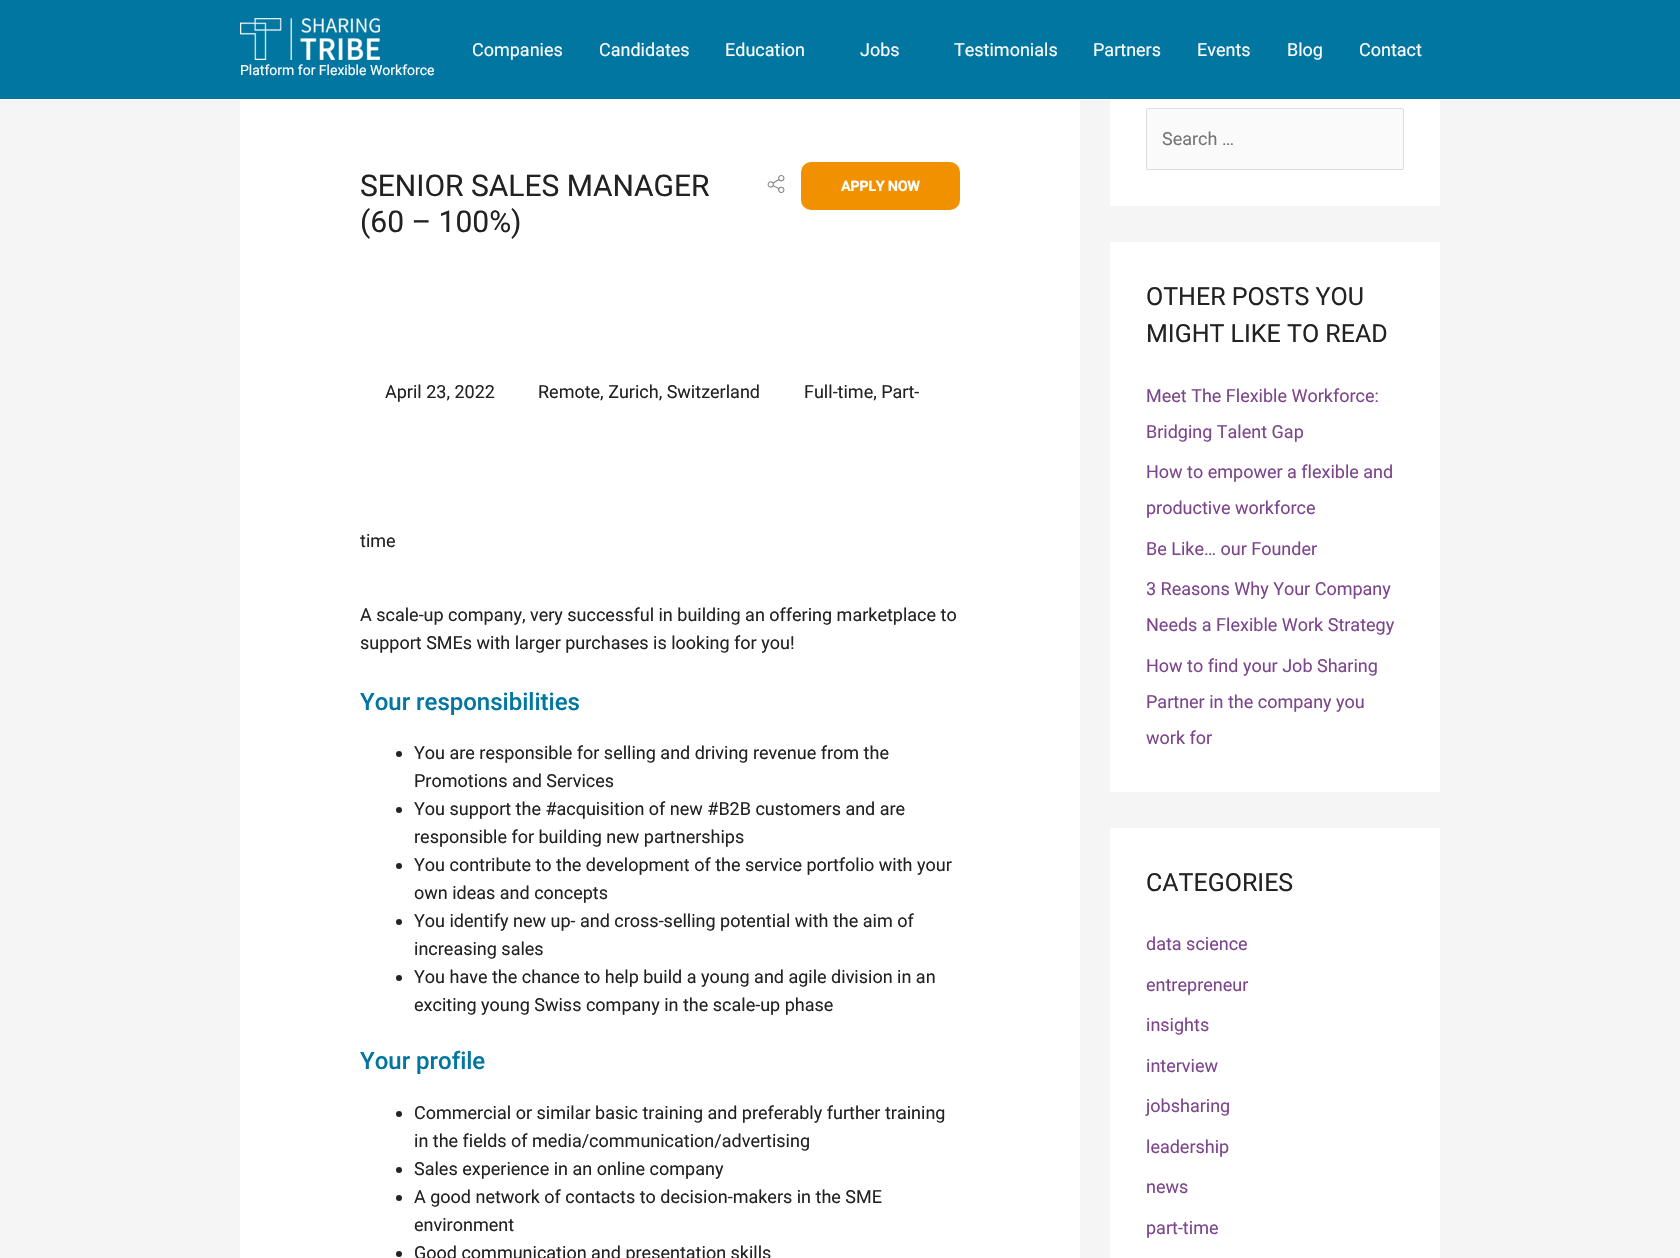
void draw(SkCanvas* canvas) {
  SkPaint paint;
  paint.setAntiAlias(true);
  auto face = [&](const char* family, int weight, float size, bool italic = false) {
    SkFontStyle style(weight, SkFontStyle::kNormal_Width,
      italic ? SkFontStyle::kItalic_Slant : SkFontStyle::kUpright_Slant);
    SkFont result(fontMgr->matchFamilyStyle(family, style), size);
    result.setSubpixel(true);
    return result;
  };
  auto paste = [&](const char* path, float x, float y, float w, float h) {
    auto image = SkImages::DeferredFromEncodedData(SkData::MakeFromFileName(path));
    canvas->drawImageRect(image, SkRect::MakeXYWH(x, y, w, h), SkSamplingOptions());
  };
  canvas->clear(0xfff5f5f5);
  paint.setColor(0xff0076a1);
  canvas->drawRect(SkRect::MakeXYWH(0, 0, 1680, 99), paint);
  paint.setColor(0xffffffff);
  canvas->drawRect(SkRect::MakeXYWH(0, 99, 1680, 1), paint);
  paste("img/1.png", 240, 18, 140, 42);
  canvas->drawRect(SkRect::MakeXYWH(240, 100, 840, 1158), paint);
  paste("img/2.png", 767, 175, 18, 18);
  paint.setColor(0xfff29100);
  canvas->drawRoundRect(SkRect::MakeXYWH(801, 162, 159, 48), 10, 10, paint);
  paint.setColor(0xff222222);
  canvas->drawCircle(399, 754, 3, paint);
  canvas->drawCircle(399, 810, 3, paint);
  canvas->drawCircle(399, 866, 3, paint);
  canvas->drawCircle(399, 922, 3, paint);
  canvas->drawCircle(399, 978, 3, paint);
  canvas->drawCircle(399, 1114, 3, paint);
  canvas->drawCircle(399, 1170, 3, paint);
  canvas->drawCircle(399, 1198, 3, paint);
  canvas->drawCircle(399, 1254, 3, paint);
  paint.setColor(0xffffffff);
  canvas->drawRect(SkRect::MakeXYWH(1110, 100, 330, 106), paint);
  paint.setColor(0xfffafafa);
  canvas->drawRoundRect(SkRect::MakeXYWH(1146.5f, 108.5f, 257, 61), 1.5f, 1.5f, paint);
  paint.setStroke(true);
  paint.setStrokeWidth(1);
  paint.setColor(0xffdddddd);
  canvas->drawRoundRect(SkRect::MakeXYWH(1146.5f, 108.5f, 257, 61), 1.5f, 1.5f, paint);
  paint.setStroke(false);
  paint.setColor(0xffffffff);
  canvas->drawRect(SkRect::MakeXYWH(1110, 242, 330, 550), paint);
  canvas->drawRect(SkRect::MakeXYWH(1110, 828, 330, 430), paint);
  auto f0 = face("Roboto", 400, 18);
  {
    const struct { const char* s; float x, y; } items[] = {
      {"Companies", 472, 56},
      {"Candidates", 599, 56},
      {"Education", 725, 56},
      {"Jobs", 860, 56},
      {"Testimonials", 954, 56},
      {"Partners", 1093, 56},
      {"Events", 1197, 56},
      {"Blog", 1287, 56},
      {"Contact", 1359, 56},
    };
    for (auto [s, x, y] : items) {
      canvas->drawString(s, x, y, f0, paint);
    }
  }
  auto f1 = face("Roboto", 400, 14);
  canvas->drawString("Platform for Flexible Workforce", 240, 75, f1, paint);
  auto f2 = face("Roboto", 400, 30);
  paint.setColor(0xff222222);
  canvas->drawString("SENIOR SALES MANAGER", 360, 196, f2, paint);
  canvas->drawString("(60 – 100%)", 360, 232, f2, paint);
  auto f3 = face("Roboto", 700, 14);
  paint.setColor(0xffffffff);
  canvas->drawString("APPLY NOW", 841, 191, f3, paint);
  paint.setColor(0xff222222);
  {
    const struct { const char* s; float x, y; } items[] = {
      {"April 23, 2022", 385, 398},
      {"Remote, Zurich, Switzerland", 538, 398},
      {"Full-time, Part-", 804, 398},
      {"time", 360, 547},
      {"A scale-up company, very successful in building an offering marketplace to", 360, 621},
      {"support SMEs with larger purchases is looking for you!", 360, 649},
    };
    for (auto [s, x, y] : items) {
      canvas->drawString(s, x, y, f0, paint);
    }
  }
  auto f4 = face("Roboto", 500, 24);
  paint.setColor(0xff0076a1);
  canvas->drawString("Your responsibilities", 360, 710, f4, paint);
  paint.setColor(0xff222222);
  {
    const struct { const char* s; float x, y; } items[] = {
      {"You are responsible for selling and driving revenue from the", 414, 759},
      {"Promotions and Services", 414, 787},
      {"You support the #acquisition of new #B2B customers and are", 414, 815},
      {"responsible for building new partnerships", 414, 843},
      {"You contribute to the development of the service portfolio with your", 414, 871},
      {"own ideas and concepts", 414, 899},
      {"You identify new up- and cross-selling potential with the aim of", 414, 927},
      {"increasing sales", 414, 955},
      {"You have the chance to help build a young and agile division in an", 414, 983},
      {"exciting young Swiss company in the scale-up phase", 414, 1011},
    };
    for (auto [s, x, y] : items) {
      canvas->drawString(s, x, y, f0, paint);
    }
  }
  paint.setColor(0xff0076a1);
  canvas->drawString("Your profile", 360, 1069, f4, paint);
  paint.setColor(0xff222222);
  {
    const struct { const char* s; float x, y; } items[] = {
      {"Commercial or similar basic training and preferably further training", 414, 1119},
      {"in the fields of media/communication/advertising", 414, 1147},
      {"Sales experience in an online company", 414, 1175},
      {"A good network of contacts to decision-makers in the SME", 414, 1203},
      {"environment", 414, 1231},
      {"Good communication and presentation skills", 414, 1259},
    };
    for (auto [s, x, y] : items) {
      canvas->drawString(s, x, y, f0, paint);
    }
  }
  paint.setColor(0xff757575);
  canvas->drawString("Search …", 1162, 145, f0, paint);
  auto f5 = face("Roboto", 400, 25);
  paint.setColor(0xff222222);
  canvas->drawString("OTHER POSTS YOU", 1146, 305, f5, paint);
  canvas->drawString("MIGHT LIKE TO READ", 1146, 342, f5, paint);
  paint.setColor(0xff7c458c);
  {
    const struct { const char* s; float x, y; } items[] = {
      {"Meet The Flexible Workforce:", 1146, 402},
      {"Bridging Talent Gap", 1146, 438},
      {"How to empower a flexible and", 1146, 478},
      {"productive workforce", 1146, 514},
      {"Be Like… our Founder", 1146, 555},
      {"3 Reasons Why Your Company", 1146, 595},
      {"Needs a Flexible Work Strategy", 1146, 631},
      {"How to find your Job Sharing", 1146, 672},
      {"Partner in the company you", 1146, 708},
      {"work for", 1146, 744},
    };
    for (auto [s, x, y] : items) {
      canvas->drawString(s, x, y, f0, paint);
    }
  }
  paint.setColor(0xff222222);
  canvas->drawString("CATEGORIES", 1146, 891, f5, paint);
  paint.setColor(0xff7c458c);
  {
    const struct { const char* s; float x, y; } items[] = {
      {"data science", 1146, 950},
      {"entrepreneur", 1146, 991},
      {"insights", 1146, 1031},
      {"interview", 1146, 1072},
      {"jobsharing", 1146, 1112},
      {"leadership", 1146, 1153},
      {"news", 1146, 1193},
      {"part-time", 1146, 1234},
    };
    for (auto [s, x, y] : items) {
      canvas->drawString(s, x, y, f0, paint);
    }
  }
}
